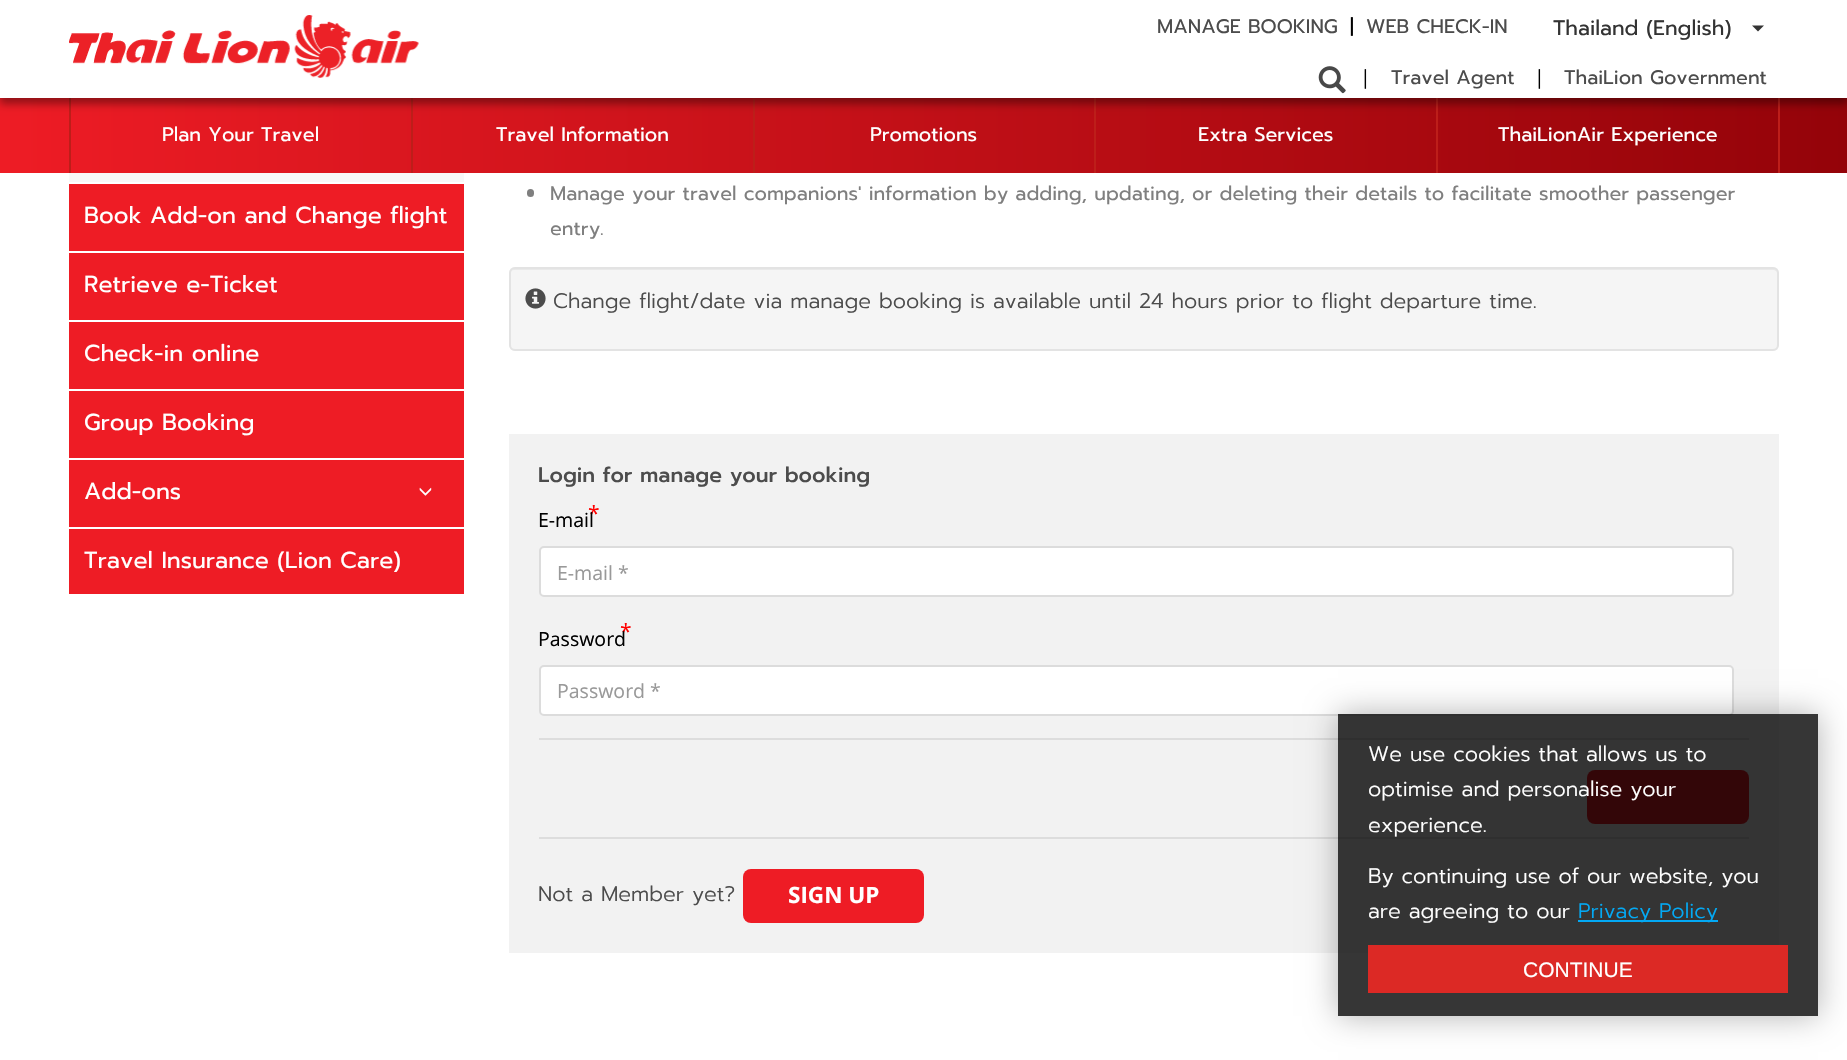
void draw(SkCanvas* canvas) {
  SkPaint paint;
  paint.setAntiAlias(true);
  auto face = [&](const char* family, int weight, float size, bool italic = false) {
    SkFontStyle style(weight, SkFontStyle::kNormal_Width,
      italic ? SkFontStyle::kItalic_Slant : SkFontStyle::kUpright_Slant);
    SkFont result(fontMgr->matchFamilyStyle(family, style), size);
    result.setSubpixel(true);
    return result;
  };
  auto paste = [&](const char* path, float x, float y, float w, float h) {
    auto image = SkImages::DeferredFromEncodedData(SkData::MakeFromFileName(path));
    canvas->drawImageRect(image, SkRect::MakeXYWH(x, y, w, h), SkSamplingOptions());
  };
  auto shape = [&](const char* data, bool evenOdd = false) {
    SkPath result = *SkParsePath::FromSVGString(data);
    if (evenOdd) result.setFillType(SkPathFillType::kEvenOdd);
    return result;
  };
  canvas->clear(0xffffffff);
  {
    const SkColor colors[] = {0xffee1c25, 0xff940309};
    const float stops[] = {0, 1};
    const SkPoint ends[] = {{0, 135}, {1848, 135}};
    paint.setShader(SkGradientShader::MakeLinear(ends, colors, stops, 2, SkTileMode::kClamp));
    paint.setAlpha(255);
  }
  canvas->drawRect(SkRect::MakeXYWH(0, 98, 1847, 75), paint);
  paint.setShader(nullptr);
  {
    const struct { float x, y, w, h; SkColor color; } items[] = {
      {69, 98, 2, 75, 0xffbd1e1a},
      {411, 98, 2, 75, 0xffbd1e1a},
      {753, 98, 2, 75, 0xffbd1e1a},
      {1094, 98, 2, 75, 0xffbd1e1a},
      {1436, 98, 2, 75, 0xffbd1e1a},
      {1778, 98, 2, 75, 0xffbd1e1a},
    };
    for (auto [x, y, w, h, color] : items) {
      paint.setColor(color);
      canvas->drawRect(SkRect::MakeXYWH(x, y, w, h), paint);
    }
  }
  paint.setColor(0x61000000);
  paint.setMaskFilter(SkMaskFilter::MakeBlur(kNormal_SkBlurStyle, 4));
  canvas->drawRect(SkRect::MakeXYWH(0, 6, 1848, 98), paint);
  paint.setMaskFilter(nullptr);
  paint.setColor(0xffffffff);
  canvas->drawRect(SkRect::MakeXYWH(0, 0, 1847, 98), paint);
  paste("img/1.png", 69, 15, 350, 63);
  paint.setColor(0xff333333);
  canvas->drawPath(shape("M1752 25.5H1764L1758 31.5Z"), paint);
  paste("img/2.png", 1318, 66, 28, 28);
  {
    const struct { float x, y, w, h; SkColor color; } items[] = {
      {69, 184, 395, 410, 0xffee1c25},
      {69, 173, 395, 9, 0xfff8f8f8},
      {69, 251, 395, 2, 0xffffffff},
      {69, 320, 395, 2, 0xffffffff},
      {69, 389, 395, 2, 0xffffffff},
      {69, 458, 395, 2, 0xffffffff},
      {69, 527, 395, 2, 0xffffffff},
    };
    for (auto [x, y, w, h, color] : items) {
      paint.setColor(color);
      canvas->drawRect(SkRect::MakeXYWH(x, y, w, h), paint);
    }
  }
  paste("img/3.png", 419, 487, 13, 9);
  paint.setColor(0xff7f7f7f);
  canvas->drawRoundRect(SkRect::MakeXYWH(527, 189, 7, 8), 3.5f, 3.5f, paint);
  paint.setColor(0xfff5f5f5);
  canvas->drawRoundRect(SkRect::MakeXYWH(509, 267, 1270, 84), 6, 6, paint);
  paint.setColor(0xffe9e9e9);
  canvas->drawPath(shape("M514 270H1773C1775 270 1778 272 1778 274C1778 271 1776 269 1773 269H515C512 269 510 271 510 274C510 272 512 270 514 270Z"), paint);
  paint.setStroke(true);
  paint.setStrokeWidth(2);
  paint.setColor(0xffe3e3e3);
  canvas->drawRoundRect(SkRect::MakeXYWH(510, 268, 1268, 82), 5, 5, paint);
  paste("img/4.png", 525, 288, 21, 21);
  paint.setStroke(false);
  paint.setColor(0xfff2f2f2);
  canvas->drawRect(SkRect::MakeXYWH(509, 434, 1270, 519), paint);
  paint.setColor(0xffffffff);
  canvas->drawRoundRect(SkRect::MakeXYWH(540, 547, 1193, 49), 4, 4, paint);
  paint.setStroke(true);
  paint.setColor(0xffdcdcdc);
  canvas->drawRoundRect(SkRect::MakeXYWH(540, 547, 1193, 49), 4, 4, paint);
  paint.setStroke(false);
  paint.setColor(0xffffffff);
  canvas->drawRoundRect(SkRect::MakeXYWH(540, 666, 1193, 49), 4, 4, paint);
  paint.setStroke(true);
  paint.setColor(0xffdcdcdc);
  canvas->drawRoundRect(SkRect::MakeXYWH(540, 666, 1193, 49), 4, 4, paint);
  paint.setStroke(false);
  paint.setColor(0xffdddddd);
  canvas->drawRect(SkRect::MakeXYWH(539, 738, 1210, 2), paint);
  paint.setColor(0xffee1c25);
  canvas->drawRoundRect(SkRect::MakeXYWH(1587, 770, 162, 54), 8, 8, paint);
  paint.setColor(0xffdddddd);
  canvas->drawRect(SkRect::MakeXYWH(539, 837, 1210, 2), paint);
  paint.setColor(0xffee1c25);
  canvas->drawRoundRect(SkRect::MakeXYWH(743, 869, 181, 54), 8, 8, paint);
  canvas->save();
  canvas->clipPath(shape("M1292 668H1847V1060H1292ZM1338 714H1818V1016H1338Z", true), true);
  paint.setColor(0x4d000000);
  paint.setMaskFilter(SkMaskFilter::MakeBlur(kNormal_SkBlurStyle, 15));
  canvas->drawRect(SkRect::MakeXYWH(1338, 714, 480, 302), paint);
  paint.setMaskFilter(nullptr);
  canvas->restore();
  {
    const struct { float x, y, w, h; SkColor color; } items[] = {
      {1338, 714, 480, 302, 0xc9000000},
      {1578, 920, 140, 2, 0xff03a9f4},
      {1368, 945, 420, 48, 0xffdc2925},
    };
    for (auto [x, y, w, h, color] : items) {
      paint.setColor(color);
      canvas->drawRect(SkRect::MakeXYWH(x, y, w, h), paint);
    }
  }
  auto f0 = face("Prompt", 400, 19.5f);
  paint.setColor(0xff4c4c4c);
  canvas->drawString("MANAGE BOOKING", 1157, 33, f0, paint);
  paint.setColor(0xff000000);
  canvas->drawString("|", 1350, 33, f0, paint);
  paint.setColor(0xff4c4c4c);
  canvas->drawString("WEB CHECK-IN", 1366, 33, f0, paint);
  auto f1 = face("Prompt", 400, 21);
  paint.setColor(0xff333333);
  canvas->drawString("Thailand (English)", 1553, 35, f1, paint);
  auto f2 = face("Open Sans", 400, 19.5f);
  paint.setColor(0xff000000);
  canvas->drawString("|", 1360, 84, f2, paint);
  paint.setColor(0xff4c4c4c);
  canvas->drawString("Travel Agent", 1391, 84, f0, paint);
  paint.setColor(0xff000000);
  canvas->drawString("|", 1534, 84, f2, paint);
  paint.setColor(0xff4c4c4c);
  canvas->drawString("ThaiLion Government", 1564, 84, f0, paint);
  paint.setColor(0xffffffff);
  {
    const struct { const char* s; float x, y; } items[] = {
      {"Plan Your Travel", 162, 141},
      {"Travel Information", 496, 141},
      {"Promotions", 870, 141},
      {"Extra Services", 1198, 141},
      {"ThaiLionAir Experience", 1498, 141},
    };
    for (auto [s, x, y] : items) {
      canvas->drawString(s, x, y, f0, paint);
    }
  }
  auto f3 = face("Prompt", 400, 23.1f);
  {
    const struct { const char* s; float x, y; } items[] = {
      {"Book Add-on and Change flight", 84, 223},
      {"Retrieve e-Ticket", 84, 292},
      {"Check-in online", 84, 361},
      {"Group Booking", 84, 430},
      {"Add-ons", 84, 499},
      {"Travel Insurance (Lion Care)", 84, 568},
    };
    for (auto [s, x, y] : items) {
      canvas->drawString(s, x, y, f3, paint);
    }
  }
  paint.setColor(0xff7f7f7f);
  canvas->drawString("Manage your travel companions' information by adding, updating, or deleting their details to facilitate smoother passenger", 550, 200, f0, paint);
  canvas->drawString("entry.", 550, 235, f0, paint);
  auto f4 = face("Prompt", 300, 21);
  paint.setColor(0xff4c4c4c);
  canvas->drawString("Change flight/date via manage booking is available until 24 hours prior to flight departure time.", 553, 308, f4, paint);
  auto f5 = face("Prompt", 500, 21);
  canvas->drawString("Login for manage your booking", 538, 482, f5, paint);
  auto f6 = face("Open Sans", 400, 21);
  paint.setColor(0xffff0000);
  canvas->drawString("*", 588, 521, f6, paint);
  paint.setColor(0xff000000);
  canvas->drawString("E-mail", 538, 527, f2, paint);
  paint.setColor(0xff999999);
  canvas->drawString("E-mail *", 557, 580, f2, paint);
  paint.setColor(0xffff0000);
  canvas->drawString("*", 620, 639, f6, paint);
  paint.setColor(0xff000000);
  canvas->drawString("Password", 538, 646, f2, paint);
  paint.setColor(0xff999999);
  canvas->drawString("Password *", 557, 698, f2, paint);
  paint.setColor(0xff4c4c4c);
  canvas->drawString("Not a Member yet?", 538, 901, f4, paint);
  auto f7 = face("Open Sans", 700, 22.5f);
  paint.setColor(0xffffffff);
  canvas->drawString("SIGN UP", 788, 903, f7, paint);
  {
    const struct { const char* s; float x, y; } items[] = {
      {"We use cookies that allows us to", 1368, 761},
      {"optimise and personalise your", 1368, 796},
      {"experience.", 1368, 832},
      {"By continuing use of our website, you", 1368, 883},
      {"are agreeing to our", 1368, 918},
    };
    for (auto [s, x, y] : items) {
      canvas->drawString(s, x, y, f4, paint);
    }
  }
  paint.setColor(0xff03a9f4);
  canvas->drawString("Privacy Policy", 1578, 918, f4, paint);
  auto f8 = face("Liberation Sans", 400, 21);
  paint.setColor(0xffffffff);
  canvas->drawString("CONTINUE", 1523, 977, f8, paint);
}
